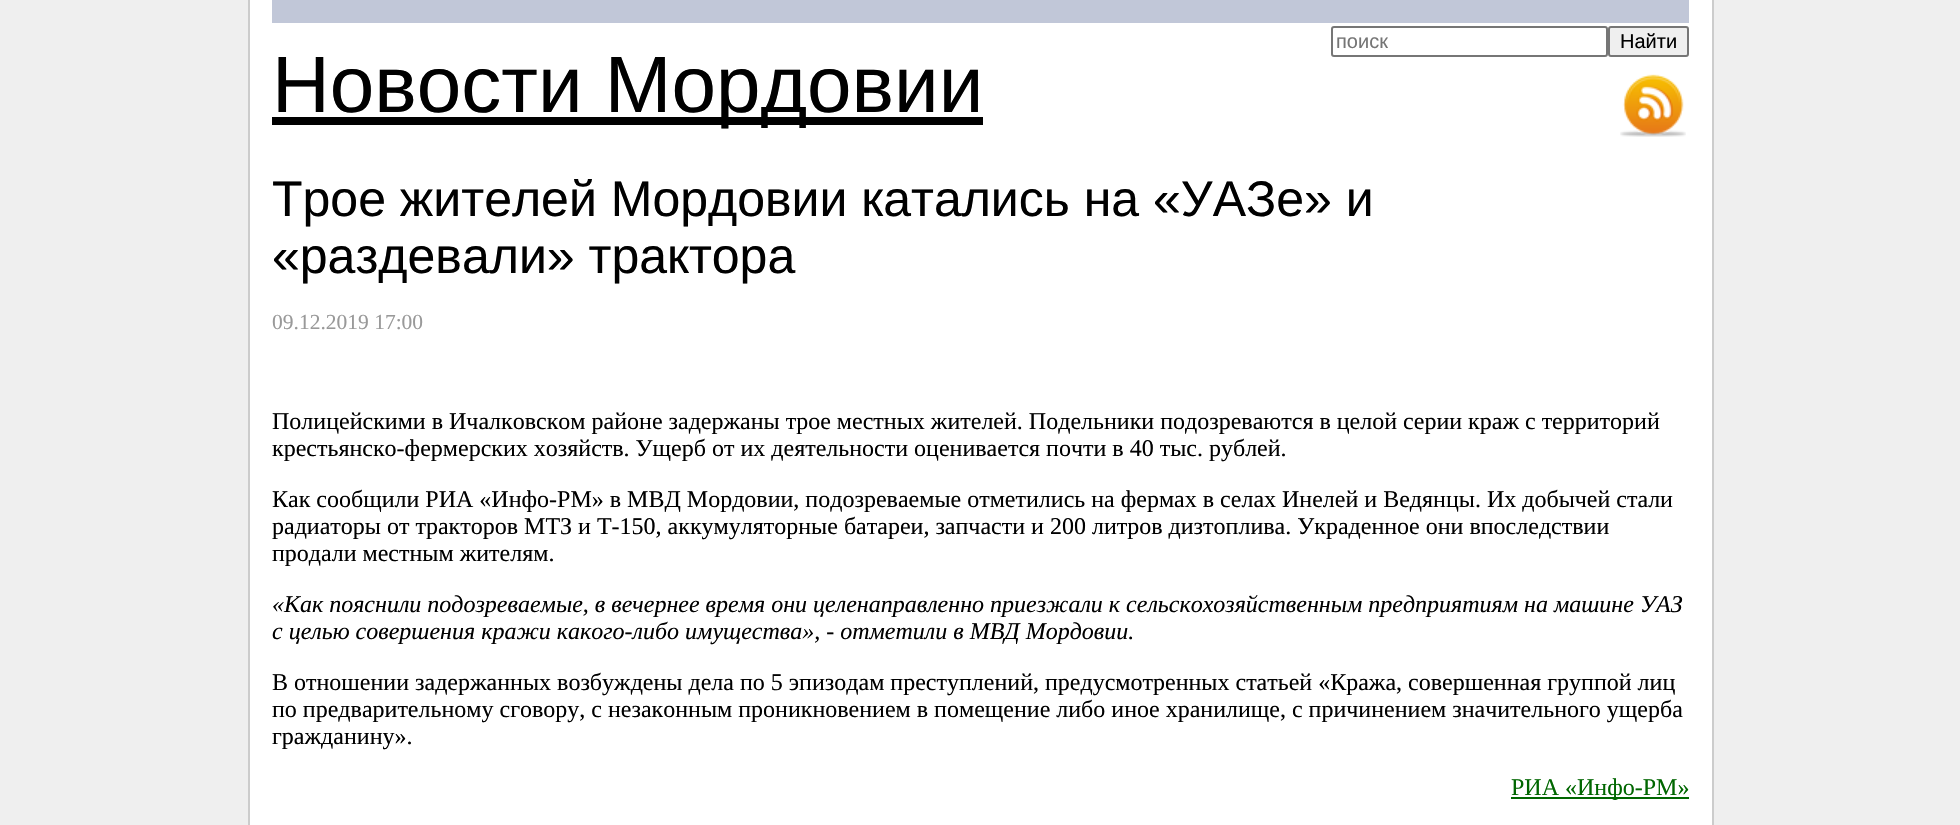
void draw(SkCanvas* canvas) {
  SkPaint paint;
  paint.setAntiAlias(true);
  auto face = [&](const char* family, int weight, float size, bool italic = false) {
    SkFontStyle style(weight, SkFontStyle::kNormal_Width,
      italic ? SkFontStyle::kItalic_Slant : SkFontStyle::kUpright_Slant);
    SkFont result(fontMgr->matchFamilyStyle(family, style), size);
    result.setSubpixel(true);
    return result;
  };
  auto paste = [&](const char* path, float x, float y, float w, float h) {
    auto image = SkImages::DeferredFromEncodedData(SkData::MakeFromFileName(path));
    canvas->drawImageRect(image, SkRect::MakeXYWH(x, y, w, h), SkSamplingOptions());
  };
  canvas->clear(0xffefefef);
  {
    const struct { float x, y, w, h; SkColor color; } items[] = {
      {250, 0, 1462, 825, 0xffffffff},
      {1712, 0, 2, 825, 0xffcccccc},
      {248, 0, 2, 825, 0xffcccccc},
      {272, 0, 1417, 23, 0xffc1c7d8},
    };
    for (auto [x, y, w, h, color] : items) {
      paint.setColor(color);
      canvas->drawRect(SkRect::MakeXYWH(x, y, w, h), paint);
    }
  }
  paint.setStroke(true);
  paint.setStrokeWidth(2);
  paint.setColor(0xff767676);
  canvas->drawRoundRect(SkRect::MakeXYWH(1332, 27, 275, 29), 2, 2, paint);
  paint.setStroke(false);
  paint.setColor(0xffefefef);
  canvas->drawRoundRect(SkRect::MakeXYWH(1609, 27, 79, 29), 2, 2, paint);
  paint.setStroke(true);
  paint.setColor(0xff767676);
  canvas->drawRoundRect(SkRect::MakeXYWH(1609, 27, 79, 29), 2, 2, paint);
  paint.setStroke(false);
  paint.setColor(0xff000000);
  canvas->drawRect(SkRect::MakeXYWH(272, 117, 711, 8), paint);
  paste("img/1.png", 1620, 74, 66, 63);
  paint.setColor(0xff006600);
  canvas->drawRect(SkRect::MakeXYWH(1511, 797, 178, 2), paint);
  auto f0 = face("Liberation Sans", 400, 20);
  paint.setColor(0xff757575);
  canvas->drawString("поиск", 1336, 48, f0, paint);
  paint.setColor(0xff000000);
  canvas->drawString("Найти", 1620, 48, f0, paint);
  auto f1 = face("Liberation Sans", 400, 80);
  canvas->drawString("Новости Мордовии", 272, 112, f1, paint);
  auto f2 = face("Liberation Sans", 400, 50);
  canvas->drawString("Трое жителей Мордовии катались на «УАЗе» и", 272, 216, f2, paint);
  canvas->drawString("«раздевали» трактора", 272, 273, f2, paint);
  auto f3 = face("Liberation Serif", 400, 21.5f);
  paint.setColor(0xff999999);
  canvas->drawString("09.12.2019 17:00", 272, 329, f3, paint);
  auto f4 = face("Liberation Serif", 400, 24);
  paint.setColor(0xff000000);
  {
    const struct { const char* s; float x, y; } items[] = {
      {"Полицейскими в Ичалковском районе задержаны трое местных жителей. Подельники подозреваются в целой серии краж с территорий", 272, 429},
      {"крестьянско-фермерских хозяйств. Ущерб от их деятельности оценивается почти в 40 тыс. рублей.", 272, 456},
      {"Как сообщили РИА «Инфо-РМ» в МВД Мордовии, подозреваемые отметились на фермах в селах Инелей и Ведянцы. Их добычей стали", 272, 507},
      {"радиаторы от тракторов МТЗ и Т-150, аккумуляторные батареи, запчасти и 200 литров дизтоплива. Украденное они впоследствии", 272, 534},
      {"продали местным жителям.", 272, 561},
    };
    for (auto [s, x, y] : items) {
      canvas->drawString(s, x, y, f4, paint);
    }
  }
  auto f5 = face("Liberation Serif", 400, 24, true);
  canvas->drawString("«Как пояснили подозреваемые, в вечернее время они целенаправленно приезжали к сельскохозяйственным предприятиям на машине УАЗ", 272, 612, f5, paint);
  canvas->drawString("с целью совершения кражи какого-либо имущества», - отметили в МВД Мордовии.", 272, 639, f5, paint);
  {
    const struct { const char* s; float x, y; } items[] = {
      {"В отношении задержанных возбуждены дела по 5 эпизодам преступлений, предусмотренных статьей «Кража, совершенная группой лиц", 272, 690},
      {"по предварительному сговору, с незаконным проникновением в помещение либо иное хранилище, с причинением значительного ущерба", 272, 717},
      {"гражданину».", 272, 744},
    };
    for (auto [s, x, y] : items) {
      canvas->drawString(s, x, y, f4, paint);
    }
  }
  paint.setColor(0xff006600);
  canvas->drawString("РИА «Инфо-РМ»", 1511, 795, f4, paint);
}
